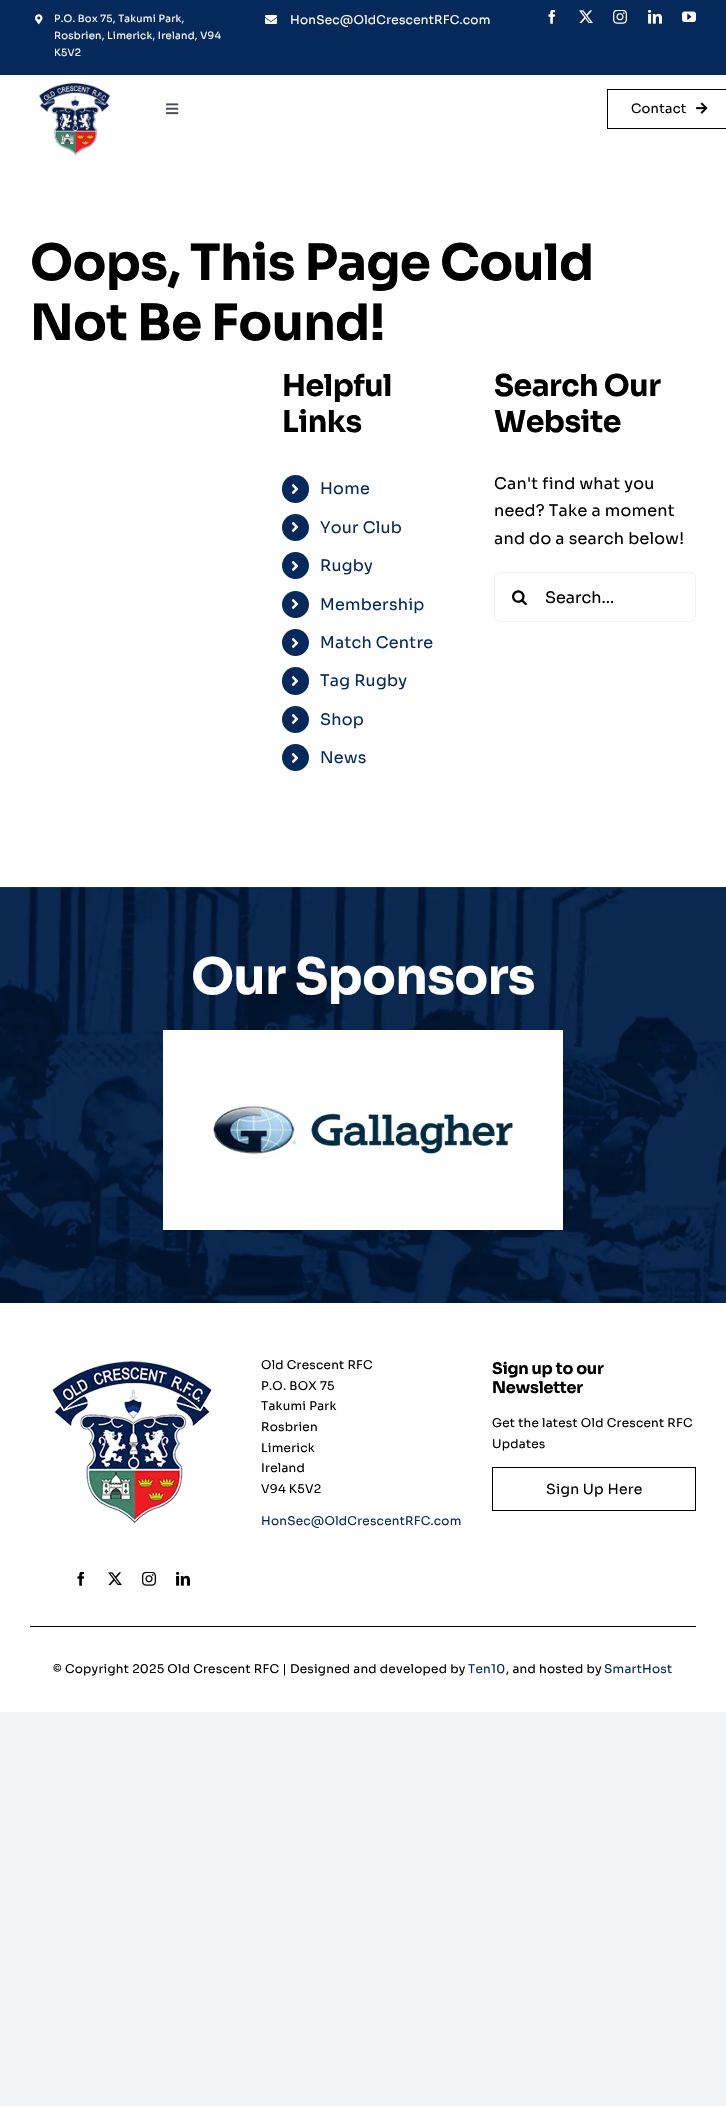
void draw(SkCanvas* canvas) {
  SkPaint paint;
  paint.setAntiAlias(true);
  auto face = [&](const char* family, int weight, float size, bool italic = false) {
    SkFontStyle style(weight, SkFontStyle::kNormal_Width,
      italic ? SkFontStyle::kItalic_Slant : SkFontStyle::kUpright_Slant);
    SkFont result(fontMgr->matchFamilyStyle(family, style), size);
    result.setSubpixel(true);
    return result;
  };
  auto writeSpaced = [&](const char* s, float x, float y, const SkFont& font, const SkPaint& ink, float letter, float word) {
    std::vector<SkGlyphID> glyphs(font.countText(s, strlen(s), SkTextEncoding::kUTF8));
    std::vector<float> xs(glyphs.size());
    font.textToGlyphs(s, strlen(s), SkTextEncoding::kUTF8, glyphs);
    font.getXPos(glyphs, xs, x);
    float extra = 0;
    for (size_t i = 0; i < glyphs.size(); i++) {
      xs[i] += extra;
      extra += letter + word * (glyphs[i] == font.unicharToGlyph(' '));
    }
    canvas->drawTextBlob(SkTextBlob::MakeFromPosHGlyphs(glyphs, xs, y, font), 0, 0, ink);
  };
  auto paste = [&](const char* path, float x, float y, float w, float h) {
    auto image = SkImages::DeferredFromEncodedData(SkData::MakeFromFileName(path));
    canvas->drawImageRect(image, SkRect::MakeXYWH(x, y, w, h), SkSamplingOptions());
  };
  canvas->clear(0xfff2f3f5);
  paint.setColor(0xffffffff);
  canvas->drawRect(SkRect::MakeXYWH(0, 75, 726, 1637), paint);
  paint.setColor(0xff05295a);
  canvas->drawRect(SkRect::MakeXYWH(0, 0, 726, 75), paint);
  paste("img/1.png", 35, 14, 8, 11);
  paste("img/2.png", 265, 15, 12, 9);
  paste("img/3.png", 548, 10, 8, 14);
  paste("img/4.png", 579, 10, 14, 14);
  paste("img/5.png", 613, 10, 14, 14);
  paste("img/6.png", 648, 10, 14, 14);
  paste("img/7.png", 682, 11, 14, 11);
  paste("img/8.png", 39, 83, 72, 73);
  paste("img/9.png", 166, 103, 13, 12);
  paint.setStroke(true);
  paint.setStrokeWidth(1);
  paint.setColor(0xff000000);
  canvas->drawRect(SkRect::MakeXYWH(607.5f, 89.5f, 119, 39), paint);
  paste("img/10.png", 696, 102, 12, 12);
  paint.setStroke(false);
  paint.setColor(0xff05295a);
  canvas->drawRoundRect(SkRect::MakeXYWH(282, 475, 27, 28), 13.5f, 13.5f, paint);
  paste("img/11.png", 291, 484, 8, 10);
  canvas->drawCircle(295.5f, 527.5f, 13.5f, paint);
  paste("img/11.png", 291, 522, 8, 10);
  canvas->drawCircle(295.5f, 565.5f, 13.5f, paint);
  paste("img/11.png", 291, 561, 8, 10);
  canvas->drawCircle(295.5f, 604.5f, 13.5f, paint);
  paste("img/11.png", 291, 599, 8, 10);
  canvas->drawCircle(295.5f, 642.5f, 13.5f, paint);
  paste("img/11.png", 291, 638, 8, 10);
  canvas->drawRoundRect(SkRect::MakeXYWH(282, 667, 27, 28), 13.5f, 13.5f, paint);
  paste("img/11.png", 291, 676, 8, 10);
  canvas->drawCircle(295.5f, 719.5f, 13.5f, paint);
  paste("img/11.png", 291, 714, 8, 10);
  canvas->drawCircle(295.5f, 757.5f, 13.5f, paint);
  paste("img/11.png", 291, 753, 8, 10);
  paint.setStroke(true);
  paint.setColor(0xfff2f3f5);
  canvas->drawRoundRect(SkRect::MakeXYWH(494.5f, 572.5f, 201, 49), 5.5f, 5.5f, paint);
  paste("img/12.png", 512, 590, 15, 16);
  paste("img/13.png", 0, 887, 726, 416);
  paste("img/14.png", 163, 1030, 400, 200);
  paste("img/15.png", 52, 1361, 160, 163);
  paste("img/16.png", 77, 1572, 8, 14);
  paste("img/17.png", 108, 1572, 14, 14);
  paste("img/18.png", 142, 1572, 14, 14);
  paste("img/19.png", 176, 1572, 14, 14);
  paint.setColor(0xff000000);
  canvas->drawRect(SkRect::MakeXYWH(492.5f, 1467.5f, 203, 43), paint);
  paint.setStroke(false);
  canvas->drawRect(SkRect::MakeXYWH(30, 1626, 666, 1), paint);
  auto f0 = face("Sora", 400, 10);
  paint.setColor(0xffffffff);
  {
    const struct { const char* s; float x, y; } items[] = {
      {"P.O. Box 75, Takumi Park,", 54, 22},
      {"Rosbrien, Limerick, Ireland, V94", 54, 39},
      {"K5V2", 54, 56},
    };
    for (auto [s, x, y] : items) {
      writeSpaced(s, x, y, f0, paint, 0.25f, 0);
    }
  }
  auto f1 = face("Sora", 400, 12);
  writeSpaced("HonSec@OldCrescentRFC.com", 290, 24, f1, paint, 0.25f, 0);
  auto f2 = face("Sora", 400, 13);
  paint.setColor(0xff000000);
  writeSpaced("Contact", 631, 113, f2, paint, 0.25f, 0);
  auto f3 = face("Sora", 700, 50);
  writeSpaced("Oops, This Page Could", 30, 280, f3, paint, -0.75f, 0);
  writeSpaced("Not Be Found!", 30, 340, f3, paint, -0.75f, 0);
  auto f4 = face("Sora", 700, 30);
  writeSpaced("Helpful", 282, 396, f4, paint, -0.5f, 0);
  writeSpaced("Links", 282, 432, f4, paint, -0.5f, 0);
  auto f5 = face("Sora", 400, 16);
  paint.setColor(0xff05295a);
  {
    const struct { const char* s; float x, y; } items[] = {
      {"Home", 320, 494},
      {"Your Club", 320, 533},
      {"Rugby", 320, 571},
      {"Membership", 320, 610},
      {"Match Centre", 320, 648},
      {"Tag Rugby", 320, 686},
      {"Shop", 320, 725},
      {"News", 320, 763},
    };
    for (auto [s, x, y] : items) {
      writeSpaced(s, x, y, f5, paint, 0.25f, 0);
    }
  }
  paint.setColor(0xff000000);
  writeSpaced("Search Our", 494, 396, f4, paint, -0.5f, 0);
  writeSpaced("Website", 494, 432, f4, paint, -0.5f, 0);
  {
    const struct { const char* s; float x, y; } items[] = {
      {"Can't find what you", 494, 489},
      {"need? Take a moment", 494, 516},
      {"and do a search below!", 494, 544},
    };
    for (auto [s, x, y] : items) {
      writeSpaced(s, x, y, f5, paint, 0.25f, 0);
    }
  }
  canvas->drawString("Search...", 545, 603, f5, paint);
  paint.setColor(0xffffffff);
  writeSpaced("Our Sponsors", 191, 994, f3, paint, -0.75f, 0);
  paint.setColor(0xff000000);
  {
    const struct { const char* s; float x, y; } items[] = {
      {"Old Crescent RFC", 261, 1369},
      {"P.O. BOX 75", 261, 1390},
      {"Takumi Park", 261, 1410},
      {"Rosbrien", 261, 1431},
      {"Limerick", 261, 1452},
      {"Ireland", 261, 1472},
      {"V94 K5V2", 261, 1493},
    };
    for (auto [s, x, y] : items) {
      writeSpaced(s, x, y, f1, paint, 0.25f, 0);
    }
  }
  paint.setColor(0xff05295a);
  writeSpaced("HonSec@OldCrescentRFC.com", 261, 1525, f1, paint, 0.25f, 0);
  auto f6 = face("Sora", 700, 16);
  paint.setColor(0xff000000);
  writeSpaced("Sign up to our", 492, 1374, f6, paint, -0.25f, 0);
  writeSpaced("Newsletter", 492, 1393, f6, paint, -0.25f, 0);
  writeSpaced("Get the latest Old Crescent RFC", 492, 1427, f1, paint, 0.25f, 0);
  writeSpaced("Updates", 492, 1448, f1, paint, 0.25f, 0);
  auto f7 = face("Sora", 400, 14);
  writeSpaced("Sign Up Here", 546, 1494, f7, paint, 0.25f, 0);
  writeSpaced("© Copyright 2025 Old Crescent RFC | Designed and developed by", 53, 1673, f1, paint, 0.25f, 0);
  paint.setColor(0xff05295a);
  writeSpaced("Ten10", 468, 1673, f1, paint, 0.25f, 0);
  paint.setColor(0xff000000);
  writeSpaced(", and hosted by", 506, 1673, f1, paint, 0.25f, 0);
  paint.setColor(0xff05295a);
  writeSpaced("SmartHost", 604, 1673, f1, paint, 0.25f, 0);
}
